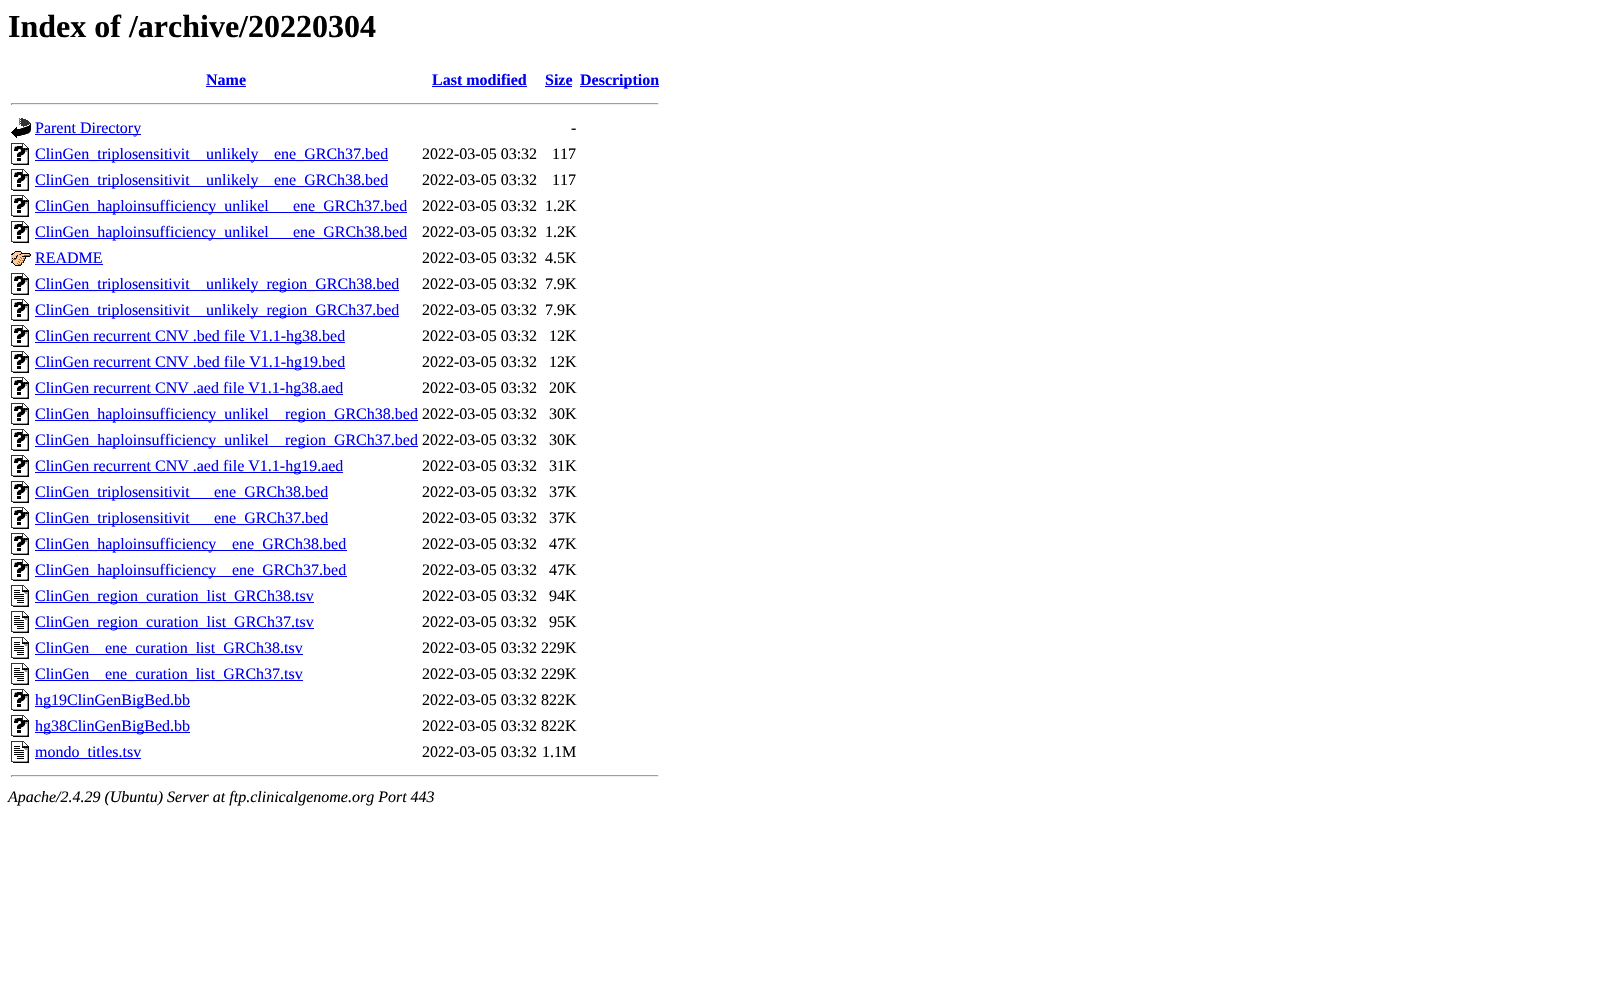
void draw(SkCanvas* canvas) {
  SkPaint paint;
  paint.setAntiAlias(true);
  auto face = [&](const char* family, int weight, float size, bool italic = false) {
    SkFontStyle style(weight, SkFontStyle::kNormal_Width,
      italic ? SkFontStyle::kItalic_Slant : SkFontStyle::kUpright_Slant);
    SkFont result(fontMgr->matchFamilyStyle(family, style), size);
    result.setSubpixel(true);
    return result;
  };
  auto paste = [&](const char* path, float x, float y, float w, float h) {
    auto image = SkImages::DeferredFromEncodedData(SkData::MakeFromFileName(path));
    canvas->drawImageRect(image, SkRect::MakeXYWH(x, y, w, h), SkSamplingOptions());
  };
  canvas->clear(0xffffffff);
  {
    const struct { float x, y, w, h; SkColor color; } items[] = {
      {206, 86, 40, 1, 0xff0000ee},
      {432, 86, 95, 1, 0xff0000ee},
      {545, 86, 27, 1, 0xff0000ee},
      {580, 86, 79, 1, 0xff0000ee},
      {11, 103, 648, 1, 0xff9f9f9f},
      {658, 103, 1, 2, 0xffeeeeee},
      {11, 104, 648, 1, 0xffeeeeee},
      {11, 103, 1, 2, 0xff9f9f9f},
    };
    for (auto [x, y, w, h, color] : items) {
      paint.setColor(color);
      canvas->drawRect(SkRect::MakeXYWH(x, y, w, h), paint);
    }
  }
  paste("img/1.png", 11, 118, 20, 20);
  paint.setColor(0xff0000ee);
  canvas->drawRect(SkRect::MakeXYWH(35, 134, 106, 1), paint);
  paste("img/2.png", 11, 143, 18, 22);
  canvas->drawRect(SkRect::MakeXYWH(35, 160, 353, 1), paint);
  paste("img/2.png", 11, 169, 18, 22);
  canvas->drawRect(SkRect::MakeXYWH(35, 186, 353, 1), paint);
  paste("img/2.png", 11, 195, 18, 22);
  canvas->drawRect(SkRect::MakeXYWH(35, 212, 372, 1), paint);
  paste("img/2.png", 11, 221, 18, 22);
  canvas->drawRect(SkRect::MakeXYWH(35, 238, 372, 1), paint);
  paste("img/3.png", 11, 251, 20, 15);
  canvas->drawRect(SkRect::MakeXYWH(35, 264, 68, 1), paint);
  paste("img/2.png", 11, 273, 18, 22);
  canvas->drawRect(SkRect::MakeXYWH(35, 290, 364, 1), paint);
  paste("img/2.png", 11, 299, 18, 22);
  canvas->drawRect(SkRect::MakeXYWH(35, 316, 364, 1), paint);
  paste("img/2.png", 11, 325, 18, 22);
  canvas->drawRect(SkRect::MakeXYWH(35, 342, 310, 1), paint);
  paste("img/2.png", 11, 351, 18, 22);
  canvas->drawRect(SkRect::MakeXYWH(35, 368, 310, 1), paint);
  paste("img/2.png", 11, 377, 18, 22);
  canvas->drawRect(SkRect::MakeXYWH(35, 394, 308, 1), paint);
  paste("img/2.png", 11, 403, 18, 22);
  canvas->drawRect(SkRect::MakeXYWH(35, 420, 383, 1), paint);
  paste("img/2.png", 11, 429, 18, 22);
  canvas->drawRect(SkRect::MakeXYWH(35, 446, 383, 1), paint);
  paste("img/2.png", 11, 455, 18, 22);
  canvas->drawRect(SkRect::MakeXYWH(35, 472, 308, 1), paint);
  paste("img/2.png", 11, 481, 18, 22);
  canvas->drawRect(SkRect::MakeXYWH(35, 498, 293, 1), paint);
  paste("img/2.png", 11, 507, 18, 22);
  canvas->drawRect(SkRect::MakeXYWH(35, 524, 293, 1), paint);
  paste("img/2.png", 11, 533, 18, 22);
  canvas->drawRect(SkRect::MakeXYWH(35, 550, 312, 1), paint);
  paste("img/2.png", 11, 559, 18, 22);
  canvas->drawRect(SkRect::MakeXYWH(35, 576, 312, 1), paint);
  paste("img/4.png", 11, 585, 18, 22);
  canvas->drawRect(SkRect::MakeXYWH(35, 602, 279, 1), paint);
  paste("img/4.png", 11, 611, 18, 22);
  canvas->drawRect(SkRect::MakeXYWH(35, 628, 279, 1), paint);
  paste("img/4.png", 11, 637, 18, 22);
  canvas->drawRect(SkRect::MakeXYWH(35, 654, 268, 1), paint);
  paste("img/4.png", 11, 663, 18, 22);
  canvas->drawRect(SkRect::MakeXYWH(35, 680, 268, 1), paint);
  paste("img/2.png", 11, 689, 18, 22);
  canvas->drawRect(SkRect::MakeXYWH(35, 706, 155, 1), paint);
  paste("img/2.png", 11, 715, 18, 22);
  canvas->drawRect(SkRect::MakeXYWH(35, 732, 155, 1), paint);
  paste("img/4.png", 11, 741, 18, 22);
  {
    const struct { float x, y, w, h; SkColor color; } items[] = {
      {35, 758, 106, 1, 0xff0000ee},
      {11, 775, 648, 1, 0xff9f9f9f},
      {658, 775, 1, 2, 0xffeeeeee},
      {11, 776, 648, 1, 0xffeeeeee},
      {11, 775, 1, 2, 0xff9f9f9f},
    };
    for (auto [x, y, w, h, color] : items) {
      paint.setColor(color);
      canvas->drawRect(SkRect::MakeXYWH(x, y, w, h), paint);
    }
  }
  auto f0 = face("Liberation Serif", 700, 32);
  paint.setColor(0xff000000);
  canvas->drawString("Index of /archive/20220304", 8, 37, f0, paint);
  auto f1 = face("Liberation Serif", 700, 16);
  paint.setColor(0xff0000ee);
  {
    const struct { const char* s; float x, y; } items[] = {
      {"Name", 206, 85},
      {"Last modified", 432, 85},
      {"Size", 545, 85},
      {"Description", 580, 85},
    };
    for (auto [s, x, y] : items) {
      canvas->drawString(s, x, y, f1, paint);
    }
  }
  auto f2 = face("Liberation Serif", 400, 16);
  canvas->drawString("Parent Directory", 35, 133, f2, paint);
  paint.setColor(0xff000000);
  canvas->drawString("-", 571, 133, f2, paint);
  paint.setColor(0xff0000ee);
  {
    const struct { const char* s; float x, y; } items[] = {
      {"ClinGen_triplosensitivit", 35, 159},
      {"unlikely", 206, 159},
      {"ene_GRCh37.bed", 274, 159},
    };
    for (auto [s, x, y] : items) {
      canvas->drawString(s, x, y, f2, paint);
    }
  }
  paint.setColor(0xff000000);
  canvas->drawString("2022-03-05 03:32", 422, 159, f2, paint);
  canvas->drawString("117", 552, 159, f2, paint);
  paint.setColor(0xff0000ee);
  {
    const struct { const char* s; float x, y; } items[] = {
      {"ClinGen_triplosensitivit", 35, 185},
      {"unlikely", 206, 185},
      {"ene_GRCh38.bed", 274, 185},
    };
    for (auto [s, x, y] : items) {
      canvas->drawString(s, x, y, f2, paint);
    }
  }
  paint.setColor(0xff000000);
  canvas->drawString("2022-03-05 03:32", 422, 185, f2, paint);
  canvas->drawString("117", 552, 185, f2, paint);
  paint.setColor(0xff0000ee);
  canvas->drawString("ClinGen_haploinsufficiency_unlikel", 35, 211, f2, paint);
  canvas->drawString("ene_GRCh37.bed", 293, 211, f2, paint);
  paint.setColor(0xff000000);
  canvas->drawString("2022-03-05 03:32", 422, 211, f2, paint);
  canvas->drawString("1.2K", 545, 211, f2, paint);
  paint.setColor(0xff0000ee);
  canvas->drawString("ClinGen_haploinsufficiency_unlikel", 35, 237, f2, paint);
  canvas->drawString("ene_GRCh38.bed", 293, 237, f2, paint);
  paint.setColor(0xff000000);
  canvas->drawString("2022-03-05 03:32", 422, 237, f2, paint);
  canvas->drawString("1.2K", 545, 237, f2, paint);
  paint.setColor(0xff0000ee);
  canvas->drawString("README", 35, 263, f2, paint);
  paint.setColor(0xff000000);
  canvas->drawString("2022-03-05 03:32", 422, 263, f2, paint);
  canvas->drawString("4.5K", 545, 263, f2, paint);
  paint.setColor(0xff0000ee);
  canvas->drawString("ClinGen_triplosensitivit", 35, 289, f2, paint);
  canvas->drawString("unlikely_region_GRCh38.bed", 206, 289, f2, paint);
  paint.setColor(0xff000000);
  canvas->drawString("2022-03-05 03:32", 422, 289, f2, paint);
  canvas->drawString("7.9K", 545, 289, f2, paint);
  paint.setColor(0xff0000ee);
  canvas->drawString("ClinGen_triplosensitivit", 35, 315, f2, paint);
  canvas->drawString("unlikely_region_GRCh37.bed", 206, 315, f2, paint);
  paint.setColor(0xff000000);
  canvas->drawString("2022-03-05 03:32", 422, 315, f2, paint);
  canvas->drawString("7.9K", 545, 315, f2, paint);
  paint.setColor(0xff0000ee);
  canvas->drawString("ClinGen recurrent CNV .bed file V1.1-hg38.bed", 35, 341, f2, paint);
  paint.setColor(0xff000000);
  canvas->drawString("2022-03-05 03:32", 422, 341, f2, paint);
  canvas->drawString("12K", 549, 341, f2, paint);
  paint.setColor(0xff0000ee);
  canvas->drawString("ClinGen recurrent CNV .bed file V1.1-hg19.bed", 35, 367, f2, paint);
  paint.setColor(0xff000000);
  canvas->drawString("2022-03-05 03:32", 422, 367, f2, paint);
  canvas->drawString("12K", 549, 367, f2, paint);
  paint.setColor(0xff0000ee);
  canvas->drawString("ClinGen recurrent CNV .aed file V1.1-hg38.aed", 35, 393, f2, paint);
  paint.setColor(0xff000000);
  canvas->drawString("2022-03-05 03:32", 422, 393, f2, paint);
  canvas->drawString("20K", 549, 393, f2, paint);
  paint.setColor(0xff0000ee);
  canvas->drawString("ClinGen_haploinsufficiency_unlikel", 35, 419, f2, paint);
  canvas->drawString("region_GRCh38.bed", 285, 419, f2, paint);
  paint.setColor(0xff000000);
  canvas->drawString("2022-03-05 03:32", 422, 419, f2, paint);
  canvas->drawString("30K", 549, 419, f2, paint);
  paint.setColor(0xff0000ee);
  canvas->drawString("ClinGen_haploinsufficiency_unlikel", 35, 445, f2, paint);
  canvas->drawString("region_GRCh37.bed", 285, 445, f2, paint);
  paint.setColor(0xff000000);
  canvas->drawString("2022-03-05 03:32", 422, 445, f2, paint);
  canvas->drawString("30K", 549, 445, f2, paint);
  paint.setColor(0xff0000ee);
  canvas->drawString("ClinGen recurrent CNV .aed file V1.1-hg19.aed", 35, 471, f2, paint);
  paint.setColor(0xff000000);
  canvas->drawString("2022-03-05 03:32", 422, 471, f2, paint);
  canvas->drawString("31K", 549, 471, f2, paint);
  paint.setColor(0xff0000ee);
  canvas->drawString("ClinGen_triplosensitivit", 35, 497, f2, paint);
  canvas->drawString("ene_GRCh38.bed", 214, 497, f2, paint);
  paint.setColor(0xff000000);
  canvas->drawString("2022-03-05 03:32", 422, 497, f2, paint);
  canvas->drawString("37K", 549, 497, f2, paint);
  paint.setColor(0xff0000ee);
  canvas->drawString("ClinGen_triplosensitivit", 35, 523, f2, paint);
  canvas->drawString("ene_GRCh37.bed", 214, 523, f2, paint);
  paint.setColor(0xff000000);
  canvas->drawString("2022-03-05 03:32", 422, 523, f2, paint);
  canvas->drawString("37K", 549, 523, f2, paint);
  paint.setColor(0xff0000ee);
  canvas->drawString("ClinGen_haploinsufficiency", 35, 549, f2, paint);
  canvas->drawString("ene_GRCh38.bed", 232, 549, f2, paint);
  paint.setColor(0xff000000);
  canvas->drawString("2022-03-05 03:32", 422, 549, f2, paint);
  canvas->drawString("47K", 549, 549, f2, paint);
  paint.setColor(0xff0000ee);
  canvas->drawString("ClinGen_haploinsufficiency", 35, 575, f2, paint);
  canvas->drawString("ene_GRCh37.bed", 232, 575, f2, paint);
  paint.setColor(0xff000000);
  canvas->drawString("2022-03-05 03:32", 422, 575, f2, paint);
  canvas->drawString("47K", 549, 575, f2, paint);
  paint.setColor(0xff0000ee);
  canvas->drawString("ClinGen_region_curation_list_GRCh38.tsv", 35, 601, f2, paint);
  paint.setColor(0xff000000);
  canvas->drawString("2022-03-05 03:32", 422, 601, f2, paint);
  canvas->drawString("94K", 549, 601, f2, paint);
  paint.setColor(0xff0000ee);
  canvas->drawString("ClinGen_region_curation_list_GRCh37.tsv", 35, 627, f2, paint);
  paint.setColor(0xff000000);
  canvas->drawString("2022-03-05 03:32", 422, 627, f2, paint);
  canvas->drawString("95K", 549, 627, f2, paint);
  paint.setColor(0xff0000ee);
  canvas->drawString("ClinGen", 35, 653, f2, paint);
  canvas->drawString("ene_curation_list_GRCh38.tsv", 105, 653, f2, paint);
  paint.setColor(0xff000000);
  canvas->drawString("2022-03-05 03:32 229K", 422, 653, f2, paint);
  paint.setColor(0xff0000ee);
  canvas->drawString("ClinGen", 35, 679, f2, paint);
  canvas->drawString("ene_curation_list_GRCh37.tsv", 105, 679, f2, paint);
  paint.setColor(0xff000000);
  canvas->drawString("2022-03-05 03:32 229K", 422, 679, f2, paint);
  paint.setColor(0xff0000ee);
  canvas->drawString("hg19ClinGenBigBed.bb", 35, 705, f2, paint);
  paint.setColor(0xff000000);
  canvas->drawString("2022-03-05 03:32 822K", 422, 705, f2, paint);
  paint.setColor(0xff0000ee);
  canvas->drawString("hg38ClinGenBigBed.bb", 35, 731, f2, paint);
  paint.setColor(0xff000000);
  canvas->drawString("2022-03-05 03:32 822K", 422, 731, f2, paint);
  paint.setColor(0xff0000ee);
  canvas->drawString("mondo_titles.tsv", 35, 757, f2, paint);
  paint.setColor(0xff000000);
  canvas->drawString("2022-03-05 03:32", 422, 757, f2, paint);
  canvas->drawString("1.1M", 542, 757, f2, paint);
  auto f3 = face("Liberation Serif", 400, 16, true);
  canvas->drawString("Apache/2.4.29 (Ubuntu) Server at ftp.clinicalgenome.org Port 443", 8, 802, f3, paint);
}
